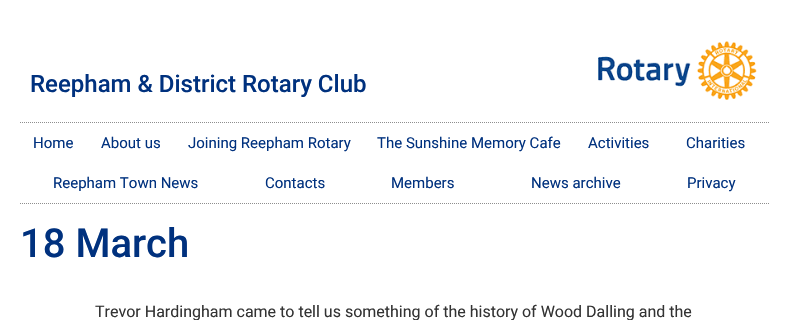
void draw(SkCanvas* canvas) {
  SkPaint paint;
  paint.setAntiAlias(true);
  auto face = [&](const char* family, int weight, float size, bool italic = false) {
    SkFontStyle style(weight, SkFontStyle::kNormal_Width,
      italic ? SkFontStyle::kItalic_Slant : SkFontStyle::kUpright_Slant);
    SkFont result(fontMgr->matchFamilyStyle(family, style), size);
    result.setSubpixel(true);
    return result;
  };
  auto paste = [&](const char* path, float x, float y, float w, float h) {
    auto image = SkImages::DeferredFromEncodedData(SkData::MakeFromFileName(path));
    canvas->drawImageRect(image, SkRect::MakeXYWH(x, y, w, h), SkSamplingOptions());
  };
  auto shape = [&](const char* data, bool evenOdd = false) {
    SkPath result = *SkParsePath::FromSVGString(data);
    if (evenOdd) result.setFillType(SkPathFillType::kEvenOdd);
    return result;
  };
  canvas->clear(0xffffffff);
  paste("img/1.png", 598, 41, 159, 59);
  paint.setStroke(true);
  paint.setStrokeWidth(1);
  paint.setColor(0xff8e8e8e);
  paint.setPathEffect(SkDashPathEffect::Make({{1, 1}}, 0));
  canvas->drawPath(shape("M20 122.5H769"), paint);
  paint.setPathEffect(nullptr);
  paint.setPathEffect(SkDashPathEffect::Make({{1, 1}}, 0));
  canvas->drawPath(shape("M20 203.5H769"), paint);
  paint.setPathEffect(nullptr);
  auto f0 = face("Roboto", 500, 24);
  paint.setStroke(false);
  paint.setColor(0xff00317e);
  canvas->drawString("Reepham & District Rotary Club", 30, 92, f0, paint);
  auto f1 = face("Roboto", 400, 15);
  {
    const struct { const char* s; float x, y; } items[] = {
      {"Home", 33, 148},
      {"About us", 101, 148},
      {"Joining Reepham Rotary", 188, 148},
      {"The Sunshine Memory Cafe", 377, 148},
      {"Activities", 588, 148},
      {"Charities", 686, 148},
      {"Reepham Town News", 53, 188},
      {"Contacts", 265, 188},
      {"Members", 391, 188},
      {"News archive", 531, 188},
      {"Privacy", 687, 188},
    };
    for (auto [s, x, y] : items) {
      canvas->drawString(s, x, y, f1, paint);
    }
  }
  auto f2 = face("Roboto", 500, 40);
  canvas->drawString("18 March", 20, 257, f2, paint);
  auto f3 = face("Roboto", 400, 16);
  paint.setColor(0xff333333);
  canvas->drawString("Trevor Hardingham came to tell us something of the history of Wood Dalling and the", 95, 317, f3, paint);
}
